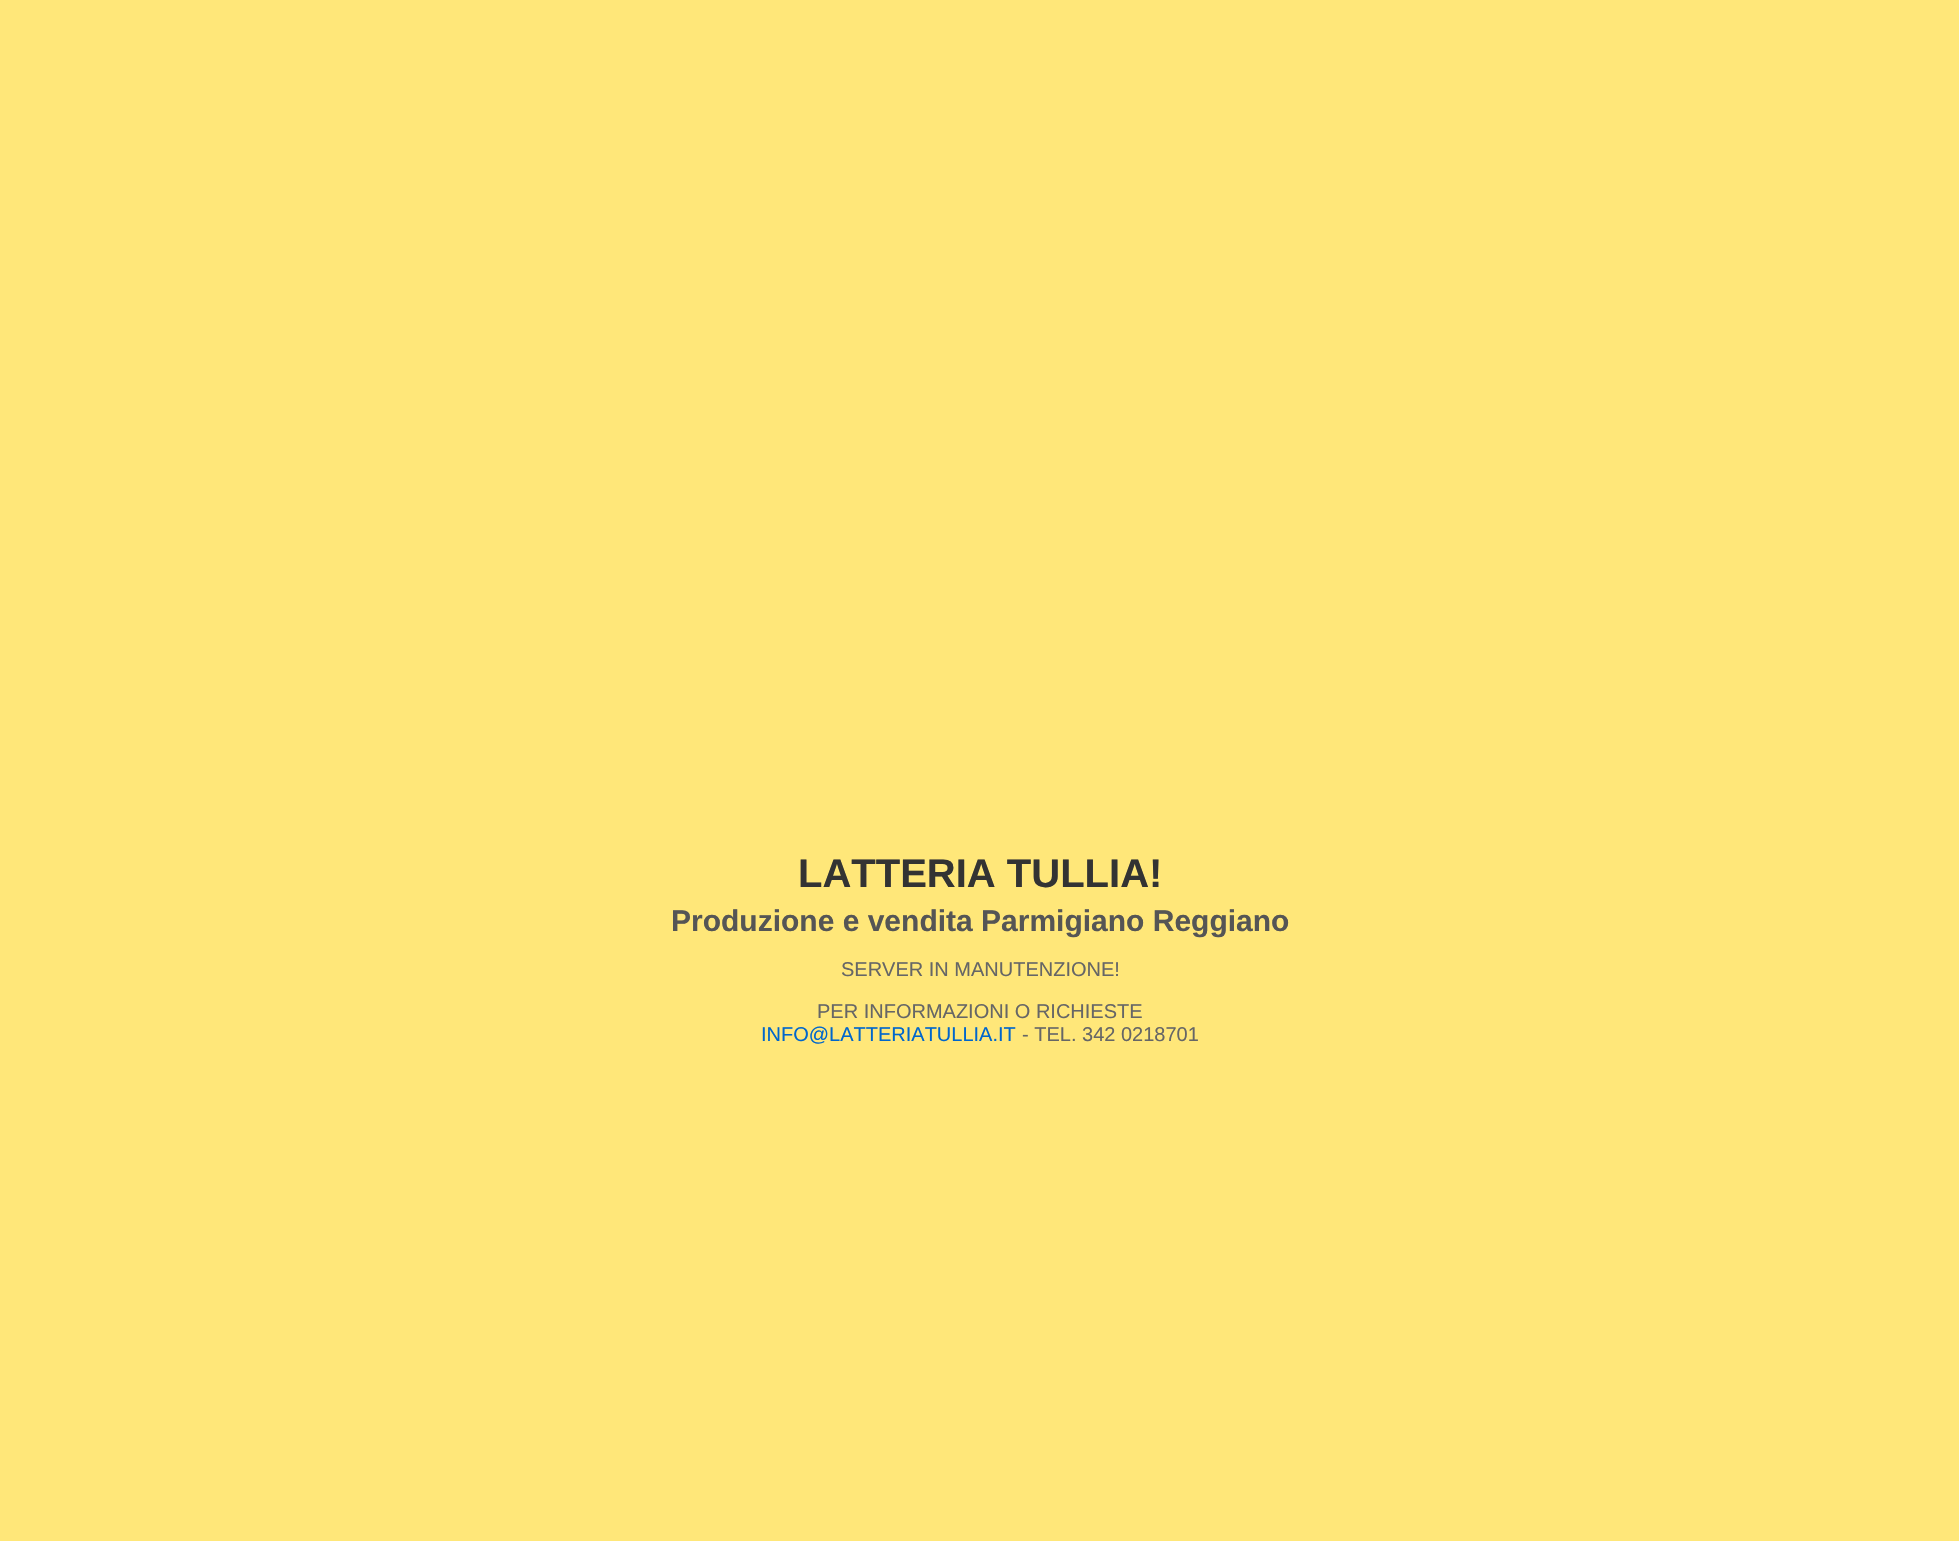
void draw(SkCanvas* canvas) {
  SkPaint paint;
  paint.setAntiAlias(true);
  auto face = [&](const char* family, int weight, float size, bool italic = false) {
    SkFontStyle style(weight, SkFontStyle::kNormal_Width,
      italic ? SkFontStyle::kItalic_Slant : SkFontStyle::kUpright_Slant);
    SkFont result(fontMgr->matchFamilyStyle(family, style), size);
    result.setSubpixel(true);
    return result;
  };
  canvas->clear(0xffffe779);
  auto f0 = face("Liberation Sans", 700, 40);
  paint.setColor(0xff333333);
  canvas->drawString("LATTERIA TULLIA!", 798, 887, f0, paint);
  auto f1 = face("Liberation Sans", 700, 30);
  paint.setColor(0xff555555);
  canvas->drawString("Produzione e vendita Parmigiano Reggiano", 671, 931, f1, paint);
  auto f2 = face("Liberation Sans", 400, 20);
  paint.setColor(0xff666666);
  canvas->drawString("SERVER IN MANUTENZIONE!", 841, 976, f2, paint);
  canvas->drawString("PER INFORMAZIONI O RICHIESTE", 817, 1018, f2, paint);
  paint.setColor(0xff0066cc);
  canvas->drawString("INFO@LATTERIATULLIA.IT", 761, 1041, f2, paint);
  paint.setColor(0xff666666);
  canvas->drawString("- TEL. 342 0218701", 1022, 1041, f2, paint);
}
